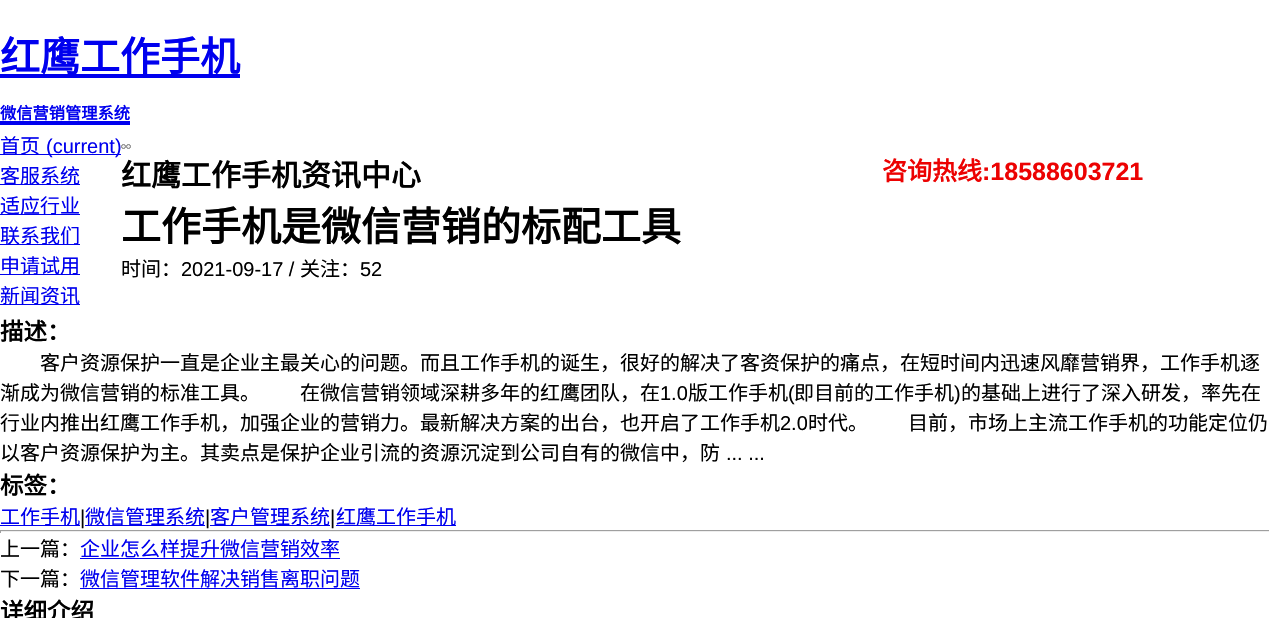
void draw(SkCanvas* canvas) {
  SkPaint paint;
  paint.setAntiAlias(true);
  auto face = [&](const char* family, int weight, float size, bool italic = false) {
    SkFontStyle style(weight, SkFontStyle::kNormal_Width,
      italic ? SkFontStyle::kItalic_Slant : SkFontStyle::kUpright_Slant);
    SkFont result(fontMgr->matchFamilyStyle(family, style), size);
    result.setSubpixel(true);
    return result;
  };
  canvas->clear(0xffffffff);
  {
    const struct { float x, y, w, h; SkColor color; } items[] = {
      {0, 74, 240, 4, 0xff0000ee},
      {0, 121, 130, 4, 0xff0000ee},
      {0, 154, 121, 1, 0xff0000ee},
      {0, 184, 80, 1, 0xff0000ee},
      {0, 214, 80, 1, 0xff0000ee},
      {0, 244, 80, 1, 0xff0000ee},
      {0, 274, 80, 1, 0xff0000ee},
      {0, 304, 80, 1, 0xff0000ee},
    };
    for (auto [x, y, w, h, color] : items) {
      paint.setColor(color);
      canvas->drawRect(SkRect::MakeXYWH(x, y, w, h), paint);
    }
  }
  paint.setColor(0xffefefef);
  canvas->drawCircle(123.5f, 146.5f, 2, paint);
  paint.setStroke(true);
  paint.setStrokeWidth(1);
  paint.setColor(0xff767676);
  canvas->drawCircle(123.5f, 146.5f, 2, paint);
  paint.setStroke(false);
  paint.setColor(0xffefefef);
  canvas->drawCircle(128.5f, 146.5f, 2, paint);
  paint.setStroke(true);
  paint.setColor(0xff767676);
  canvas->drawCircle(128.5f, 146.5f, 2, paint);
  paint.setStroke(false);
  {
    const struct { float x, y, w, h; SkColor color; } items[] = {
      {0, 525, 80, 1, 0xff0000ee},
      {85, 525, 120, 1, 0xff0000ee},
      {210, 525, 120, 1, 0xff0000ee},
      {336, 525, 120, 1, 0xff0000ee},
      {0, 530, 1269, 1, 0xff9f9f9f},
      {0, 531, 1269, 1, 0xffeeeeee},
      {0, 530, 1, 3, 0xff9f9f9f},
      {80, 558, 260, 1, 0xff0000ee},
      {80, 588, 280, 1, 0xff0000ee},
    };
    for (auto [x, y, w, h, color] : items) {
      paint.setColor(color);
      canvas->drawRect(SkRect::MakeXYWH(x, y, w, h), paint);
    }
  }
  auto f0 = face("Noto Sans CJK SC", 700, 40);
  canvas->drawString("红鹰工作手机", 0, 71, f0, paint);
  auto f1 = face("Noto Sans CJK SC", 700, 16.25f);
  canvas->drawString("微信营销管理系统", 0, 119, f1, paint);
  auto f2 = face("Noto Sans CJK SC", 400, 20);
  canvas->drawString("首页", 0, 153, f2, paint);
  auto f3 = face("Liberation Sans", 400, 20);
  canvas->drawString("(current)", 46, 153, f3, paint);
  {
    const struct { const char* s; float x, y; } items[] = {
      {"客服系统", 0, 183},
      {"适应行业", 0, 213},
      {"联系我们", 0, 243},
      {"申请试用", 0, 273},
      {"新闻资讯", 0, 303},
    };
    for (auto [s, x, y] : items) {
      canvas->drawString(s, x, y, f2, paint);
    }
  }
  auto f4 = face("Noto Sans CJK SC", 700, 25);
  paint.setColor(0xffec0202);
  canvas->drawString("咨询热线", 882, 180, f4, paint);
  auto f5 = face("Liberation Sans", 700, 25);
  canvas->drawString(":18588603721", 982, 180, f5, paint);
  auto f6 = face("Noto Sans CJK SC", 700, 30);
  paint.setColor(0xff000000);
  canvas->drawString("红鹰工作手机资讯中心", 121, 186, f6, paint);
  canvas->drawString("工作手机是微信营销的标配工具", 121, 241, f0, paint);
  canvas->drawString("时间：", 121, 276, f2, paint);
  canvas->drawString("2021-09-17 /", 181, 276, f3, paint);
  canvas->drawString("关注：", 300, 276, f2, paint);
  canvas->drawString("52", 360, 276, f3, paint);
  auto f7 = face("Noto Sans CJK SC", 700, 23.5f);
  canvas->drawString("描述：", 0, 340, f7, paint);
  canvas->drawString("客户资源保护一直是企业主最关心的问题。而且工作手机的诞生，很好的解决了客资保护的痛点，在短时间内迅速风靡营销界，工作手机逐", 40, 370, f2, paint);
  canvas->drawString("渐成为微信营销的标准工具。　　在微信营销领域深耕多年的红鹰团队，在", 0, 400, f2, paint);
  canvas->drawString("1.0", 660, 400, f3, paint);
  canvas->drawString("版工作手机", 688, 400, f2, paint);
  canvas->drawString("(", 788, 400, f3, paint);
  canvas->drawString("即目前的工作手机", 794, 400, f2, paint);
  canvas->drawString(")", 954, 400, f3, paint);
  canvas->drawString("的基础上进行了深入研发，率先在", 961, 400, f2, paint);
  canvas->drawString("行业内推出红鹰工作手机，加强企业的营销力。最新解决方案的出台，也开启了工作手机", 0, 430, f2, paint);
  canvas->drawString("2.0", 780, 430, f3, paint);
  canvas->drawString("时代。　　目前，市场上主流工作手机的功能定位仍", 808, 430, f2, paint);
  canvas->drawString("以客户资源保护为主。其卖点是保护企业引流的资源沉淀到公司自有的微信中，防", 0, 460, f2, paint);
  canvas->drawString("... ...", 726, 460, f3, paint);
  canvas->drawString("标签：", 0, 494, f7, paint);
  paint.setColor(0xff0000ee);
  canvas->drawString("工作手机", 0, 524, f2, paint);
  paint.setColor(0xff000000);
  canvas->drawString("|", 80, 524, f3, paint);
  paint.setColor(0xff0000ee);
  canvas->drawString("微信管理系统", 85, 524, f2, paint);
  paint.setColor(0xff000000);
  canvas->drawString("|", 205, 524, f3, paint);
  paint.setColor(0xff0000ee);
  canvas->drawString("客户管理系统", 210, 524, f2, paint);
  paint.setColor(0xff000000);
  canvas->drawString("|", 330, 524, f3, paint);
  paint.setColor(0xff0000ee);
  canvas->drawString("红鹰工作手机", 336, 524, f2, paint);
  paint.setColor(0xff000000);
  canvas->drawString("上一篇：", 0, 556, f2, paint);
  paint.setColor(0xff0000ee);
  canvas->drawString("企业怎么样提升微信营销效率", 80, 556, f2, paint);
  paint.setColor(0xff000000);
  canvas->drawString("下一篇：", 0, 586, f2, paint);
  paint.setColor(0xff0000ee);
  canvas->drawString("微信管理软件解决销售离职问题", 80, 586, f2, paint);
  paint.setColor(0xff000000);
  canvas->drawString("详细介绍", 0, 620, f7, paint);
}
